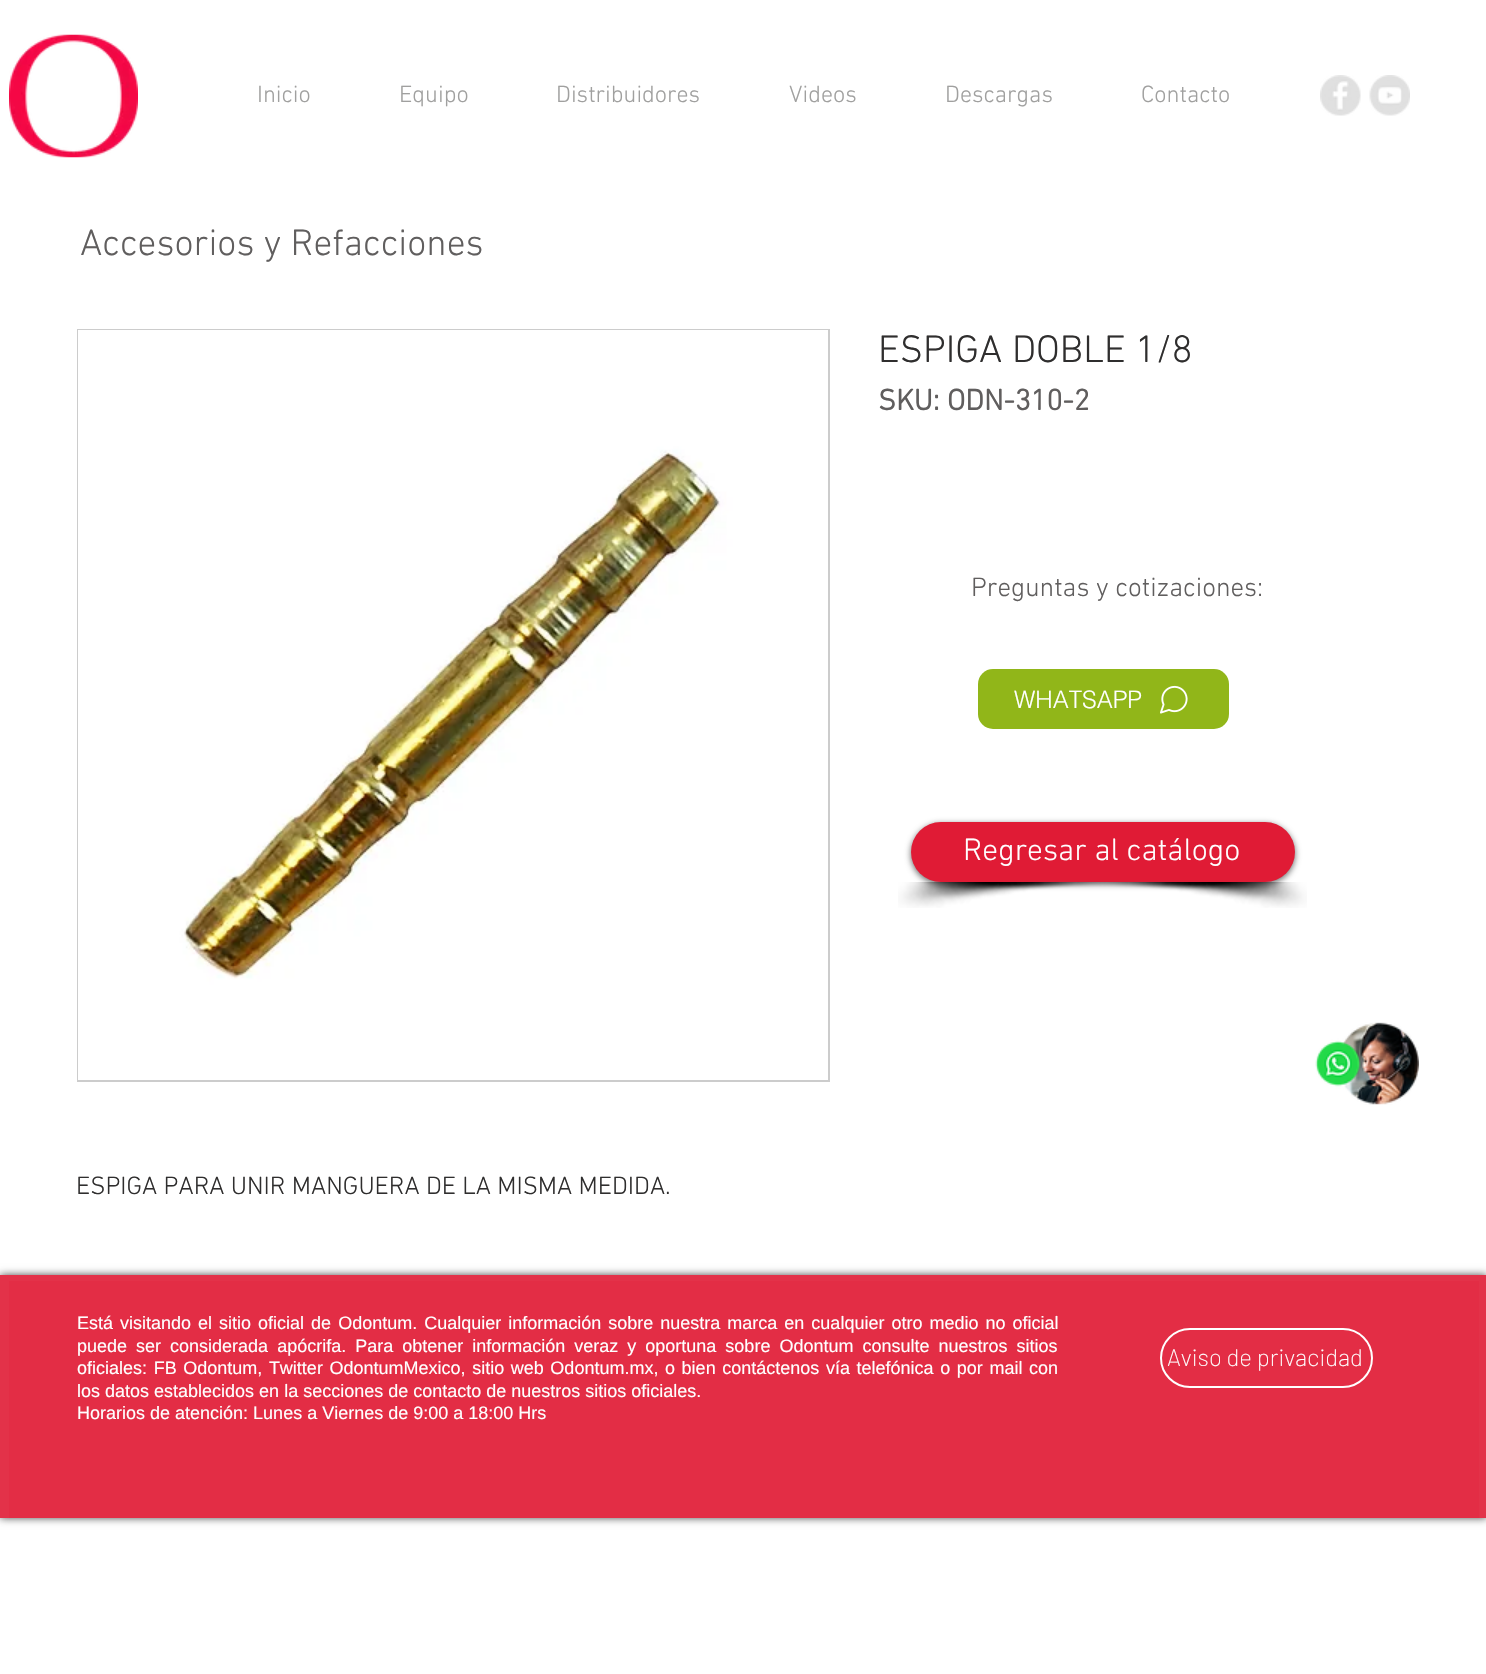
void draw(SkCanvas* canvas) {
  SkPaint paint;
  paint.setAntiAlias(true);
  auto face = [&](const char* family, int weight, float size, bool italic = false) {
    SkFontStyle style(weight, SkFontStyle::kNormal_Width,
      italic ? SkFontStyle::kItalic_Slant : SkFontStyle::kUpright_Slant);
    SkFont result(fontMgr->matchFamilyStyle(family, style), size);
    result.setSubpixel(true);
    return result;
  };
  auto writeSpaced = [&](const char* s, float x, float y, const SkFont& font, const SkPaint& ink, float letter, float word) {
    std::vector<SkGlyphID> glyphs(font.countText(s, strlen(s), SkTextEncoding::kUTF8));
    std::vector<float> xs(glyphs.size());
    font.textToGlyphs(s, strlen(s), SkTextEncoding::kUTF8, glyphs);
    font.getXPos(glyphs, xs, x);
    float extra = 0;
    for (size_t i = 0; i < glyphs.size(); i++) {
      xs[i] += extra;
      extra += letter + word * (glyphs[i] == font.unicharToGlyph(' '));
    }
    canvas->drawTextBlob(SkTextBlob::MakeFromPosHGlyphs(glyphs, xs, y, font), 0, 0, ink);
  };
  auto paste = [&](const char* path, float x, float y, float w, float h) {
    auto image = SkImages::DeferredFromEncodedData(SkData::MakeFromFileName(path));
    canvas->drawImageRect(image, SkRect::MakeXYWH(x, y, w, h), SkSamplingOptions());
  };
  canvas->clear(0xffffffff);
  paste("img/1.png", 9, 34, 129, 124);
  paste("img/2.png", 1320, 75, 41, 41);
  paste("img/3.png", 1369, 75, 41, 41);
  paint.setStroke(true);
  paint.setStrokeWidth(2);
  paint.setColor(0xffcccccc);
  canvas->drawRect(SkRect::MakeXYWH(78, 330, 751, 751), paint);
  paste("img/4.png", 78, 330, 750, 750);
  paint.setStroke(false);
  paint.setColor(0xff91b619);
  canvas->drawRoundRect(SkRect::MakeXYWH(978, 669, 251, 60), 15, 15, paint);
  paste("img/5.png", 1160, 685, 28, 29);
  paste("img/6.png", 898, 882, 230, 26);
  paste("img/7.png", 1077, 882, 230, 26);
  paint.setColor(0x99000000);
  paint.setMaskFilter(SkMaskFilter::MakeBlur(kNormal_SkBlurStyle, 3));
  canvas->drawRoundRect(SkRect::MakeXYWH(911, 824, 384, 60), 30, 30, paint);
  paint.setMaskFilter(nullptr);
  paint.setColor(0xffe01b35);
  canvas->drawRoundRect(SkRect::MakeXYWH(911, 822, 384, 60), 30, 30, paint);
  paste("img/8.png", 1315, 1022, 104, 83);
  paint.setColor(0xb3000000);
  paint.setMaskFilter(SkMaskFilter::MakeBlur(kNormal_SkBlurStyle, 4));
  canvas->drawRect(SkRect::MakeXYWH(0, 1275, 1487, 243), paint);
  paint.setMaskFilter(nullptr);
  paint.setColor(0xffe33249);
  canvas->drawRect(SkRect::MakeXYWH(0, 1275, 1486, 243), paint);
  paint.setColor(0xffe32d45);
  canvas->drawRect(SkRect::MakeXYWH(9, 1281, 1470, 237), paint);
  paint.setStroke(true);
  paint.setColor(0xffffffff);
  canvas->drawRoundRect(SkRect::MakeXYWH(1161, 1329, 211, 58), 29, 29, paint);
  auto f0 = face("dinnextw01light", 300, 24);
  paint.setStroke(false);
  paint.setColor(0xffa0a09f);
  {
    const struct { const char* s; float x, y; } items[] = {
      {"Inicio", 257, 102},
      {"Equipo", 399, 102},
      {"Distribuidores", 556, 102},
      {"Videos", 789, 102},
      {"Descargas", 945, 102},
      {"Contacto", 1141, 102},
    };
    for (auto [s, x, y] : items) {
      canvas->drawString(s, x, y, f0, paint);
    }
  }
  auto f1 = face("dinnextw01light", 300, 37.5f);
  paint.setColor(0xff605e5e);
  canvas->drawString("Accesorios y Refacciones", 80, 255, f1, paint);
  auto f2 = face("dinnextw01light", 300, 39);
  paint.setColor(0xff2f2e2e);
  canvas->drawString("ESPIGA DOBLE 1/8", 878, 362, f2, paint);
  auto f3 = face("dinnextw01light", 700, 30);
  paint.setColor(0xff605e5e);
  canvas->drawString("SKU: ODN-310-2", 878, 410, f3, paint);
  auto f4 = face("dinnextw01light", 300, 25.5f);
  paint.setColor(0xff2f2e2e);
  canvas->drawString("ESPIGA PARA UNIR MANGUERA DE LA MISMA MEDIDA.", 76, 1194, f4, paint);
  auto f5 = face("dinnextw01light", 300, 27);
  paint.setColor(0xff605e5e);
  canvas->drawString("Preguntas y cotizaciones:", 971, 596, f5, paint);
  auto f6 = face("helvetica", 300, 24);
  paint.setColor(0xffffffff);
  canvas->drawString("WHATSAPP", 1014, 708, f6, paint);
  auto f7 = face("dinnextw01light", 300, 31.5f);
  canvas->drawString("Regresar al catálogo", 963, 860, f7, paint);
  auto f8 = face("Liberation Sans", 400, 18);
  writeSpaced("Está visitando el sitio oficial de Odontum. Cualquier información sobre nuestra marca en cualquier otro medio no oficial", 77, 1329, f8, paint, 0, 2);
  writeSpaced("puede ser considerada apócrifa. Para obtener información veraz y oportuna sobre Odontum consulte nuestros sitios", 77, 1352, f8, paint, 0, 4);
  writeSpaced("oficiales: FB Odontum, Twitter OdontumMexico, sitio web Odontum.mx, o bien contáctenos vía telefónica o por mail con", 77, 1374, f8, paint, 0, 1.6f);
  canvas->drawString("los datos establecidos en la secciones de contacto de nuestros sitios oficiales.", 77, 1397, f8, paint);
  canvas->drawString("Horarios de atención: Lunes a Viernes de 9:00 a 18:00 Hrs", 77, 1419, f8, paint);
  auto f9 = face("Barlow", 200, 24);
  canvas->drawString("Aviso de privacidad", 1167, 1366, f9, paint);
}
